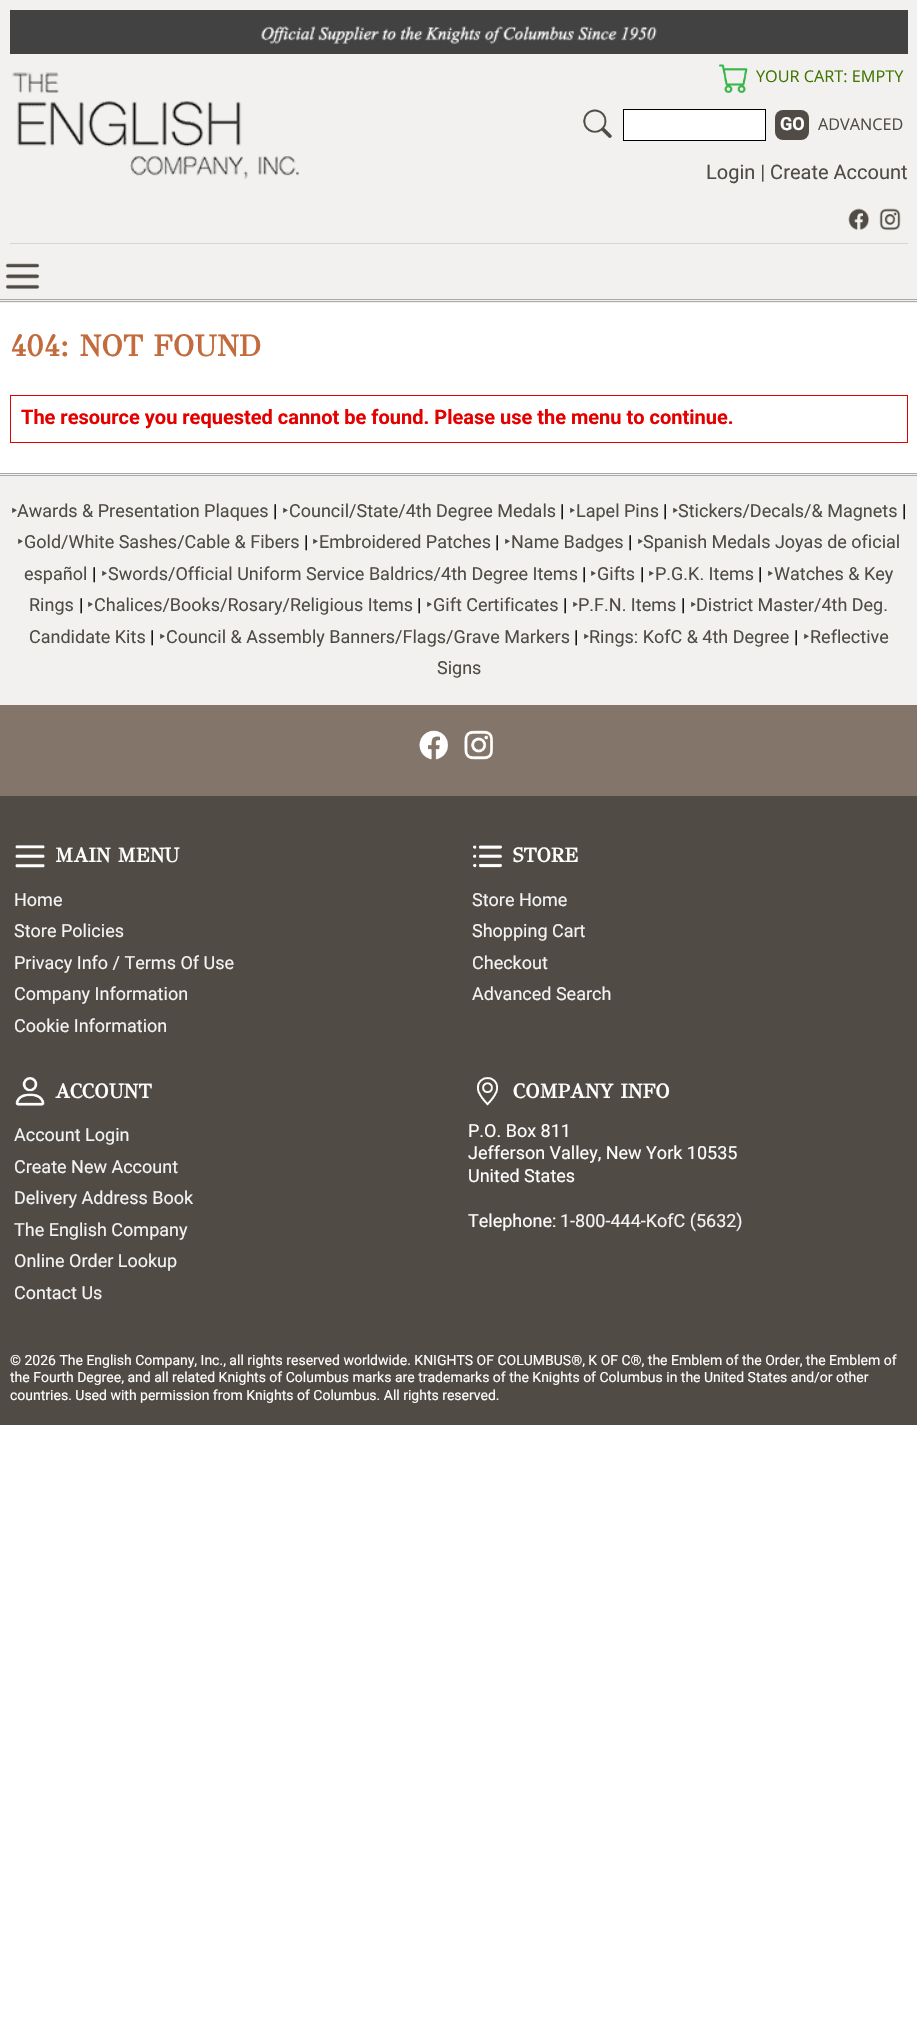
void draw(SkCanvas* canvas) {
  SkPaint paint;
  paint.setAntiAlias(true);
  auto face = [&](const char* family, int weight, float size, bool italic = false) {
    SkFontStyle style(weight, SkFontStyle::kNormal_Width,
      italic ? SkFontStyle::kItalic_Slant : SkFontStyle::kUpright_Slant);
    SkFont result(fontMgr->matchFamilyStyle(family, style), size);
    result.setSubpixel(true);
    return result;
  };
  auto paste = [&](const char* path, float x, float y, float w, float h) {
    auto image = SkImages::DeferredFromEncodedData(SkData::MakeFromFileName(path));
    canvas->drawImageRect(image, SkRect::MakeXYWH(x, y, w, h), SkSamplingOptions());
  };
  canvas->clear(0xffffffff);
  paint.setColor(0xfff2f1ef);
  canvas->drawRect(SkRect::MakeXYWH(0, 0, 917, 303), paint);
  paint.setColor(0xff424242);
  canvas->drawRect(SkRect::MakeXYWH(10, 10, 898, 44), paint);
  paste("img/1.png", 261, 26, 396, 18);
  paint.setColor(0xffd5d5d5);
  canvas->drawRect(SkRect::MakeXYWH(10, 243, 898, 1), paint);
  paste("img/2.png", 12, 72, 287, 107);
  paste("img/3.png", 718, 64, 30, 29);
  paste("img/4.png", 583, 109, 29, 29);
  paint.setColor(0xffffffff);
  canvas->drawRect(SkRect::MakeXYWH(623.5f, 109.5f, 142, 31), paint);
  paint.setStroke(true);
  paint.setStrokeWidth(1);
  paint.setColor(0xff000000);
  canvas->drawRect(SkRect::MakeXYWH(623.5f, 109.5f, 142, 31), paint);
  paint.setStroke(false);
  paint.setColor(0xff504b45);
  canvas->drawRoundRect(SkRect::MakeXYWH(775, 110, 34, 30), 8, 8, paint);
  paste("img/5.png", 848, 208, 21, 22);
  paste("img/6.png", 879, 208, 22, 23);
  paint.setColor(0xffa9a9a9);
  canvas->drawRect(SkRect::MakeXYWH(0, 299, 917, 1), paint);
  canvas->drawRect(SkRect::MakeXYWH(0, 301, 917, 1), paint);
  paste("img/7.png", 5, 263, 35, 26);
  paint.setStroke(true);
  paint.setColor(0xffe50000);
  canvas->drawRect(SkRect::MakeXYWH(10.5f, 395.5f, 897, 47), paint);
  paint.setStroke(false);
  {
    const struct { float x, y, w, h; SkColor color; } items[] = {
      {0, 474, 917, 231, 0xfff2f1ef},
      {0, 473, 917, 1, 0xffa9a9a9},
      {0, 475, 917, 1, 0xffa9a9a9},
      {0, 705, 917, 91, 0xff837569},
    };
    for (auto [x, y, w, h, color] : items) {
      paint.setColor(color);
      canvas->drawRect(SkRect::MakeXYWH(x, y, w, h), paint);
    }
  }
  paste("img/8.png", 419, 730, 29, 30);
  paste("img/9.png", 464, 730, 29, 30);
  paint.setColor(0xff504b45);
  canvas->drawRect(SkRect::MakeXYWH(0, 796, 917, 629), paint);
  paste("img/10.png", 15, 845, 30, 23);
  paste("img/11.png", 473, 845, 29, 23);
  paste("img/12.png", 15, 1077, 30, 29);
  paste("img/13.png", 477, 1077, 21, 29);
  auto f0 = face("Open Sans", 400, 16.25f);
  paint.setColor(0xff407600);
  canvas->drawString("YOUR CART: EMPTY", 756, 82, f0, paint);
  auto f1 = face("Roboto", 700, 18);
  paint.setColor(0xffffffff);
  canvas->drawString("GO", 780, 130, f1, paint);
  paint.setColor(0xff504b45);
  canvas->drawString("ADVANCED", 818, 130, f0, paint);
  auto f2 = face("Roboto", 400, 20);
  canvas->drawString("Login | Create Account", 706, 179, f2, paint);
  auto f3 = face("GFS Didot", 700, 30);
  paint.setColor(0xffc36b3d);
  canvas->drawString("404: NOT FOUND", 10, 356, f3, paint);
  auto f4 = face("Roboto", 700, 20);
  paint.setColor(0xffe50000);
  canvas->drawString("The resource you requested cannot be found. Please use the menu to continue.", 21, 424, f4, paint);
  auto f5 = face("Noto Sans", 400, 18);
  paint.setColor(0xff504b45);
  canvas->drawString("‣", 11, 517, f5, paint);
  auto f6 = face("Roboto", 400, 18);
  canvas->drawString("Awards & Presentation Plaques", 17, 517, f6, paint);
  paint.setColor(0xff000000);
  canvas->drawString("|", 273, 517, f6, paint);
  paint.setColor(0xff504b45);
  canvas->drawString("‣", 282, 517, f5, paint);
  canvas->drawString("Council/State/4th Degree Medals", 289, 517, f6, paint);
  paint.setColor(0xff000000);
  canvas->drawString("|", 560, 517, f6, paint);
  paint.setColor(0xff504b45);
  canvas->drawString("‣", 569, 517, f5, paint);
  canvas->drawString("Lapel Pins", 576, 517, f6, paint);
  paint.setColor(0xff000000);
  canvas->drawString("|", 663, 517, f6, paint);
  paint.setColor(0xff504b45);
  canvas->drawString("‣", 672, 517, f5, paint);
  canvas->drawString("Stickers/Decals/& Magnets", 678, 517, f6, paint);
  paint.setColor(0xff000000);
  canvas->drawString("|", 902, 517, f6, paint);
  paint.setColor(0xff504b45);
  canvas->drawString("‣", 17, 548, f5, paint);
  canvas->drawString("Gold/White Sashes/Cable & Fibers", 24, 548, f6, paint);
  paint.setColor(0xff000000);
  canvas->drawString("|", 304, 548, f6, paint);
  paint.setColor(0xff504b45);
  canvas->drawString("‣", 312, 548, f5, paint);
  canvas->drawString("Embroidered Patches", 319, 548, f6, paint);
  paint.setColor(0xff000000);
  canvas->drawString("|", 495, 548, f6, paint);
  paint.setColor(0xff504b45);
  canvas->drawString("‣", 504, 548, f5, paint);
  canvas->drawString("Name Badges", 511, 548, f6, paint);
  paint.setColor(0xff000000);
  canvas->drawString("|", 628, 548, f6, paint);
  paint.setColor(0xff504b45);
  canvas->drawString("‣", 637, 548, f5, paint);
  canvas->drawString("Spanish Medals Joyas de oficial", 643, 548, f6, paint);
  canvas->drawString("español", 24, 580, f6, paint);
  paint.setColor(0xff000000);
  canvas->drawString("|", 92, 580, f6, paint);
  paint.setColor(0xff504b45);
  canvas->drawString("‣", 101, 580, f5, paint);
  canvas->drawString("Swords/Official Uniform Service Baldrics/4th Degree Items", 108, 580, f6, paint);
  paint.setColor(0xff000000);
  canvas->drawString("|", 582, 580, f6, paint);
  paint.setColor(0xff504b45);
  canvas->drawString("‣", 590, 580, f5, paint);
  canvas->drawString("Gifts", 597, 580, f6, paint);
  paint.setColor(0xff000000);
  canvas->drawString("|", 640, 580, f6, paint);
  paint.setColor(0xff504b45);
  canvas->drawString("‣", 648, 580, f5, paint);
  canvas->drawString("P.G.K. Items", 655, 580, f6, paint);
  paint.setColor(0xff000000);
  canvas->drawString("|", 758, 580, f6, paint);
  paint.setColor(0xff504b45);
  canvas->drawString("‣", 767, 580, f5, paint);
  canvas->drawString("Watches & Key", 774, 580, f6, paint);
  canvas->drawString("Rings", 29, 611, f6, paint);
  paint.setColor(0xff000000);
  canvas->drawString("|", 79, 611, f6, paint);
  paint.setColor(0xff504b45);
  canvas->drawString("‣", 87, 611, f5, paint);
  canvas->drawString("Chalices/Books/Rosary/Religious Items", 94, 611, f6, paint);
  paint.setColor(0xff000000);
  canvas->drawString("|", 417, 611, f6, paint);
  paint.setColor(0xff504b45);
  canvas->drawString("‣", 426, 611, f5, paint);
  canvas->drawString("Gift Certificates", 433, 611, f6, paint);
  paint.setColor(0xff000000);
  canvas->drawString("|", 563, 611, f6, paint);
  paint.setColor(0xff504b45);
  canvas->drawString("‣", 572, 611, f5, paint);
  canvas->drawString("P.F.N. Items", 578, 611, f6, paint);
  paint.setColor(0xff000000);
  canvas->drawString("|", 681, 611, f6, paint);
  paint.setColor(0xff504b45);
  canvas->drawString("‣", 690, 611, f5, paint);
  canvas->drawString("District Master/4th Deg.", 696, 611, f6, paint);
  canvas->drawString("Candidate Kits", 29, 643, f6, paint);
  paint.setColor(0xff000000);
  canvas->drawString("|", 150, 643, f6, paint);
  paint.setColor(0xff504b45);
  canvas->drawString("‣", 159, 643, f5, paint);
  canvas->drawString("Council & Assembly Banners/Flags/Grave Markers", 166, 643, f6, paint);
  paint.setColor(0xff000000);
  canvas->drawString("|", 574, 643, f6, paint);
  paint.setColor(0xff504b45);
  canvas->drawString("‣", 583, 643, f5, paint);
  canvas->drawString("Rings: KofC & 4th Degree", 589, 643, f6, paint);
  paint.setColor(0xff000000);
  canvas->drawString("|", 794, 643, f6, paint);
  paint.setColor(0xff504b45);
  canvas->drawString("‣", 803, 643, f5, paint);
  canvas->drawString("Reflective", 810, 643, f6, paint);
  canvas->drawString("Signs", 437, 674, f6, paint);
  auto f7 = face("GFS Didot", 700, 20);
  paint.setColor(0xffffffff);
  canvas->drawString("MAIN MENU", 55, 862, f7, paint);
  paint.setColor(0xfff4f4f4);
  {
    const struct { const char* s; float x, y; } items[] = {
      {"Home", 14, 906},
      {"Store Policies", 14, 937},
      {"Privacy Info / Terms Of Use", 14, 969},
      {"Company Information", 14, 1000},
      {"Cookie Information", 14, 1032},
    };
    for (auto [s, x, y] : items) {
      canvas->drawString(s, x, y, f6, paint);
    }
  }
  paint.setColor(0xffffffff);
  canvas->drawString("STORE", 513, 862, f7, paint);
  paint.setColor(0xfff4f4f4);
  {
    const struct { const char* s; float x, y; } items[] = {
      {"Store Home", 472, 906},
      {"Shopping Cart", 472, 937},
      {"Checkout", 472, 969},
      {"Advanced Search", 472, 1000},
    };
    for (auto [s, x, y] : items) {
      canvas->drawString(s, x, y, f6, paint);
    }
  }
  paint.setColor(0xffffffff);
  canvas->drawString("ACCOUNT", 55, 1098, f7, paint);
  paint.setColor(0xfff4f4f4);
  {
    const struct { const char* s; float x, y; } items[] = {
      {"Account Login", 14, 1141},
      {"Create New Account", 14, 1173},
      {"Delivery Address Book", 14, 1204},
      {"The English Company", 14, 1236},
      {"Online Order Lookup", 14, 1267},
      {"Contact Us", 14, 1299},
    };
    for (auto [s, x, y] : items) {
      canvas->drawString(s, x, y, f6, paint);
    }
  }
  paint.setColor(0xffffffff);
  canvas->drawString("COMPANY INFO", 513, 1098, f7, paint);
  {
    const struct { const char* s; float x, y; } items[] = {
      {"P.O. Box 811", 468, 1137},
      {"Jefferson Valley, New York 10535", 468, 1159},
      {"United States", 468, 1182},
      {"Telephone:", 468, 1227},
    };
    for (auto [s, x, y] : items) {
      canvas->drawString(s, x, y, f6, paint);
    }
  }
  paint.setColor(0xfff4f4f4);
  canvas->drawString("1-800-444-KofC (5632)", 560, 1227, f6, paint);
  auto f8 = face("Roboto", 400, 14);
  paint.setColor(0xffffffff);
  {
    const struct { const char* s; float x, y; } items[] = {
      {"© 2026 The English Company, Inc., all rights reserved worldwide. KNIGHTS OF COLUMBUS®, K OF C®, the Emblem of the Order, the Emblem of", 10, 1365},
      {"the Fourth Degree, and all related Knights of Columbus marks are trademarks of the Knights of Columbus in the United States and/or other", 10, 1382},
      {"countries. Used with permission from Knights of Columbus. All rights reserved.", 10, 1400},
    };
    for (auto [s, x, y] : items) {
      canvas->drawString(s, x, y, f8, paint);
    }
  }
}
